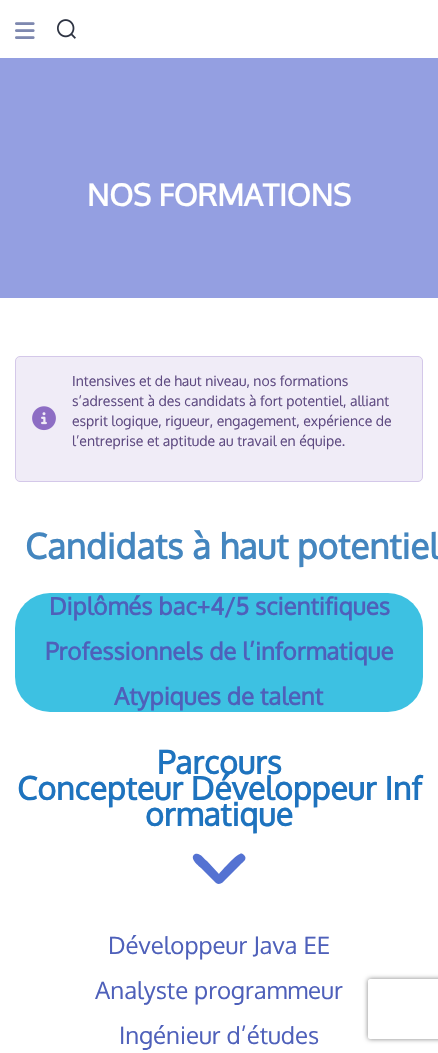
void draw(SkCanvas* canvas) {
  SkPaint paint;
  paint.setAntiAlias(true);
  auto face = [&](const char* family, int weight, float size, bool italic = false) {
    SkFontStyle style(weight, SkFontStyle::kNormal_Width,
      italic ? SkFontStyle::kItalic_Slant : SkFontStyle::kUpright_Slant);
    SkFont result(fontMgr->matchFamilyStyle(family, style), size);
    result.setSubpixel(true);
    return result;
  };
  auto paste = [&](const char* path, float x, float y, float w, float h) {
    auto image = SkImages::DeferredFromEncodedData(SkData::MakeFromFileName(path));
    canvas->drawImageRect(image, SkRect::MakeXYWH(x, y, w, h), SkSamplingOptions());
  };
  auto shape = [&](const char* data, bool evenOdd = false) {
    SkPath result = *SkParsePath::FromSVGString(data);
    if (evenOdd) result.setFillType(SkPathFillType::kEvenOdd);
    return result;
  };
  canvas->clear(0xffffffff);
  paste("img/1.png", 15, 22, 20, 17);
  paste("img/2.png", 57, 19, 19, 20);
  paint.setColor(0xff949fe1);
  canvas->drawRect(SkRect::MakeXYWH(0, 58, 438, 240), paint);
  paint.setColor(0xfff0ecf7);
  canvas->drawRoundRect(SkRect::MakeXYWH(15.5f, 356.5f, 407, 125), 4.5f, 4.5f, paint);
  paint.setStroke(true);
  paint.setStrokeWidth(1);
  paint.setColor(0xffd4c8e9);
  canvas->drawRoundRect(SkRect::MakeXYWH(15.5f, 356.5f, 407, 125), 4.5f, 4.5f, paint);
  paste("img/3.png", 32, 406, 24, 25);
  paint.setStroke(false);
  paint.setColor(0xff3dc1e2);
  canvas->drawRoundRect(SkRect::MakeXYWH(15, 593, 408, 119), 35, 35, paint);
  paint.setColor(0xff5472d2);
  canvas->drawPath(shape("M216 883C220 886 223 882 226 879L240 865C243 862 248 859 244 855C243 854 241 853 240 854C237 854 222 870 219 874L207 861C204 859 200 852 195 854C188 858 200 867 201 868Z"), paint);
  canvas->save();
  canvas->clipPath(shape("M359 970H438V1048H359ZM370 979H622C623 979 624 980 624 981V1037C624 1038 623 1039 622 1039H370C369 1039 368 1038 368 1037V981C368 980 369 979 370 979Z", true), true);
  paint.setColor(0xff808080);
  paint.setMaskFilter(SkMaskFilter::MakeBlur(kNormal_SkBlurStyle, 2.5f));
  canvas->drawRoundRect(SkRect::MakeXYWH(368, 979, 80, 60), 2, 2, paint);
  paint.setMaskFilter(nullptr);
  canvas->restore();
  auto f0 = face("Oxygen", 700, 30);
  paint.setColor(0xffffffff);
  canvas->drawString("NOS FORMATIONS", 87, 206, f0, paint);
  auto f1 = face("Oxygen", 400, 14);
  paint.setColor(0xff5e4a81);
  {
    const struct { const char* s; float x, y; } items[] = {
      {"Intensives et de haut niveau, nos formations", 72, 386},
      {"s’adressent à des candidats à fort potentiel, alliant", 72, 406},
      {"esprit logique, rigueur, engagement, expérience de", 72, 426},
      {"l’entreprise et aptitude au travail en équipe.", 72, 446},
    };
    for (auto [s, x, y] : items) {
      canvas->drawString(s, x, y, f1, paint);
    }
  }
  auto f2 = face("Oxygen", 700, 35);
  paint.setColor(0xff4486bf);
  canvas->drawString("Candidats à haut potentiel", 25, 559, f2, paint);
  auto f3 = face("Oxygen", 700, 24);
  paint.setColor(0xff4e60ba);
  {
    const struct { const char* s; float x, y; } items[] = {
      {"Diplômés bac+4/5 scientifiques", 49, 615},
      {"Professionnels de l’informatique", 45, 660},
      {"Atypiques de talent", 114, 705},
    };
    for (auto [s, x, y] : items) {
      canvas->drawString(s, x, y, f3, paint);
    }
  }
  auto f4 = face("Oxygen", 700, 32);
  paint.setColor(0xff1e73be);
  {
    const struct { const char* s; float x, y; } items[] = {
      {"Parcours", 157, 774},
      {"Concepteur Développeur Inf", 17, 800},
      {"ormatique", 145, 826},
    };
    for (auto [s, x, y] : items) {
      canvas->drawString(s, x, y, f4, paint);
    }
  }
  auto f5 = face("Oxygen", 400, 24);
  paint.setColor(0xff4e60ba);
  {
    const struct { const char* s; float x, y; } items[] = {
      {"Développeur Java EE", 108, 954},
      {"Analyste programmeur", 95, 999},
      {"Ingénieur d’études", 119, 1044},
    };
    for (auto [s, x, y] : items) {
      canvas->drawString(s, x, y, f5, paint);
    }
  }
}
